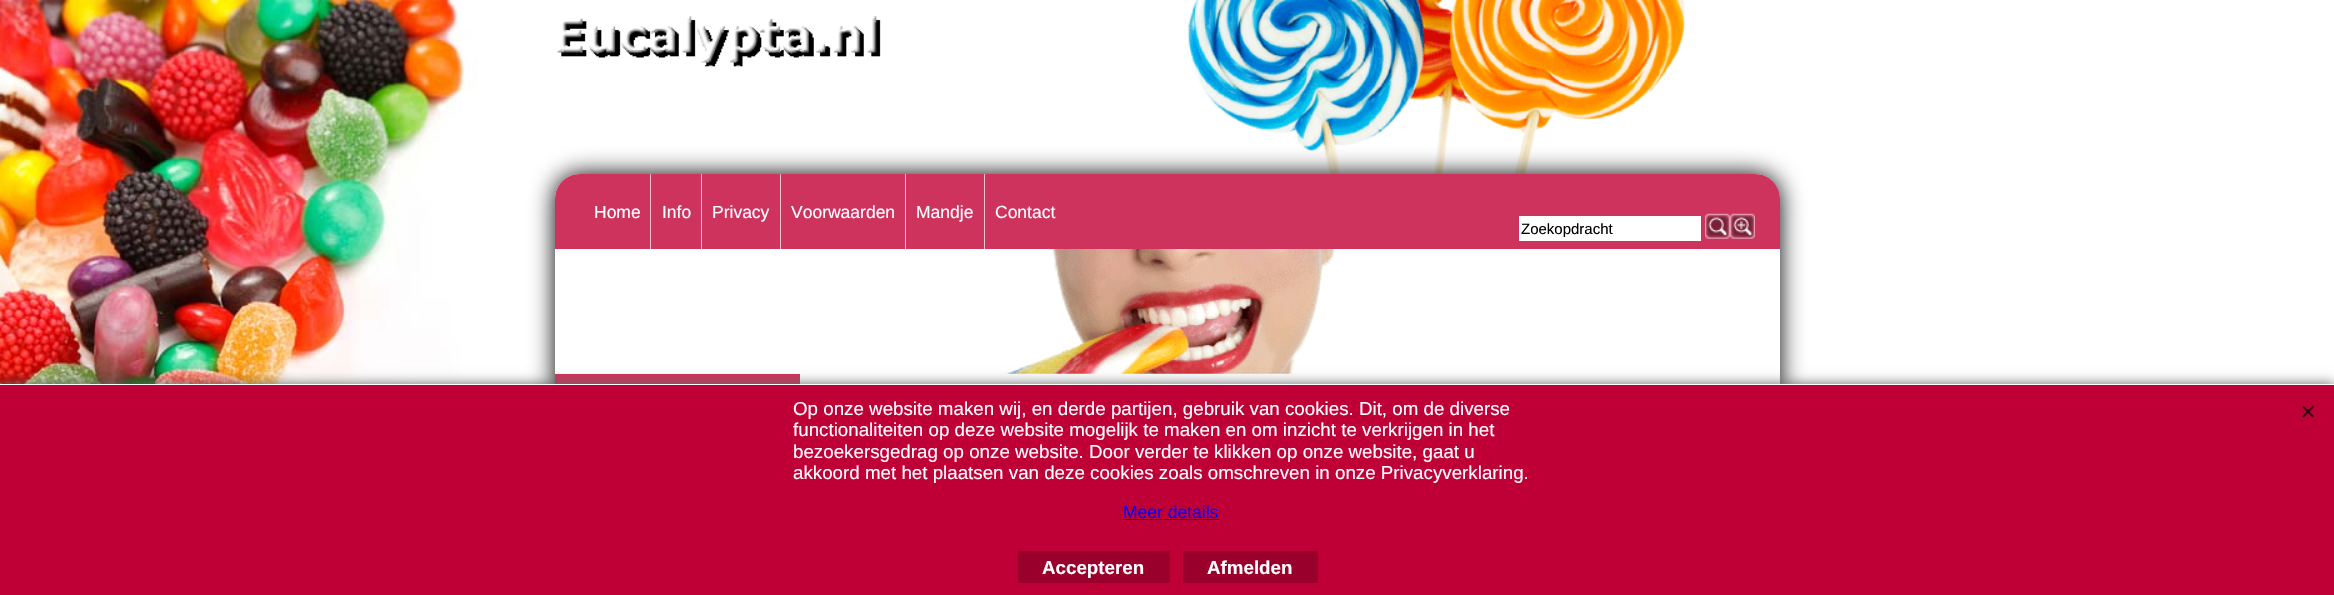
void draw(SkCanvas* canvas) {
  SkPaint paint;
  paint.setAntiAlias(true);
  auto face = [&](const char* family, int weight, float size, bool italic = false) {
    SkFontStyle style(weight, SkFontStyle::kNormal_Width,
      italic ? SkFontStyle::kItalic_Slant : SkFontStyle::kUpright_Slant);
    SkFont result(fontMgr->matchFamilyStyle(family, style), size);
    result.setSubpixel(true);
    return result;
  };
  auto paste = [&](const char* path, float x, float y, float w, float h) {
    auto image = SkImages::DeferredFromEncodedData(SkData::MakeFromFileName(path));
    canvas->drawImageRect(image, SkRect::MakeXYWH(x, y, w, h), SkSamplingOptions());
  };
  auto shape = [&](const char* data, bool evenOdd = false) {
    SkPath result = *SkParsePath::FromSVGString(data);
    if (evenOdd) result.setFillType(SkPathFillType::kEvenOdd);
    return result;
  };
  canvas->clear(0xffffffff);
  paste("img/1.png", 0, 0, 477, 384);
  paste("img/2.png", 557, 16, 324, 51);
  paste("img/3.png", 1187, 0, 499, 174);
  canvas->save();
  canvas->clipPath(shape("M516 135H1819V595H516ZM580 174H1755C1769 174 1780 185 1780 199V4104C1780 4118 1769 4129 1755 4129H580C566 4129 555 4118 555 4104V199C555 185 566 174 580 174Z", true), true);
  paint.setColor(0xff000000);
  paint.setMaskFilter(SkMaskFilter::MakeBlur(kNormal_SkBlurStyle, 12.5f));
  canvas->drawRoundRect(SkRect::MakeXYWH(555, 174, 1225, 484), 25, 25, paint);
  paint.setMaskFilter(nullptr);
  canvas->restore();
  paint.setColor(0xffcd335c);
  canvas->drawPath(shape("M580 174H1755C1769 174 1780 185 1780 199V249H555V199C555 185 566 174 580 174Z"), paint);
  {
    const struct { float x, y, w, h; SkColor color; } items[] = {
      {650, 174, 1, 75, 0xfff1c1ce},
      {701, 174, 1, 75, 0xfff1c1ce},
      {780, 174, 1, 75, 0xfff1c1ce},
      {905, 174, 1, 75, 0xfff1c1ce},
      {984, 174, 1, 75, 0xfff1c1ce},
      {1519, 216, 182, 25, 0xffffffff},
    };
    for (auto [x, y, w, h, color] : items) {
      paint.setColor(color);
      canvas->drawRect(SkRect::MakeXYWH(x, y, w, h), paint);
    }
  }
  paste("img/4.png", 1705, 213, 25, 26);
  paste("img/5.png", 1730, 213, 25, 26);
  paste("img/6.png", 1007, 249, 332, 125);
  paint.setColor(0xffcd335c);
  canvas->drawRect(SkRect::MakeXYWH(555, 374, 245, 2), paint);
  canvas->drawRect(SkRect::MakeXYWH(555, 376, 245, 8), paint);
  paint.setColor(0xff666666);
  paint.setMaskFilter(SkMaskFilter::MakeBlur(kNormal_SkBlurStyle, 6));
  canvas->drawRect(SkRect::MakeXYWH(0, 384, 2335, 211), paint);
  paint.setMaskFilter(nullptr);
  {
    const struct { float x, y, w, h; SkColor color; } items[] = {
      {0, 385, 2334, 210, 0xffbf0036},
      {0, 384, 2334, 1, 0xffffffff},
      {1123, 519, 96, 1, 0xff0000ff},
    };
    for (auto [x, y, w, h, color] : items) {
      paint.setColor(color);
      canvas->drawRect(SkRect::MakeXYWH(x, y, w, h), paint);
    }
  }
  paste("img/7.png", 2302, 405, 12, 13);
  paint.setColor(0xff99002b);
  canvas->drawRect(SkRect::MakeXYWH(1018, 551, 152, 32), paint);
  canvas->drawRect(SkRect::MakeXYWH(1183, 551, 135, 32), paint);
  auto f0 = face("Liberation Sans", 400, 17.5f);
  paint.setColor(0xffffffff);
  {
    const struct { const char* s; float x, y; } items[] = {
      {"Home", 594, 218},
      {"Info", 662, 218},
      {"Privacy", 712, 218},
      {"Voorwaarden", 791, 218},
      {"Mandje", 916, 218},
      {"Contact", 995, 218},
    };
    for (auto [s, x, y] : items) {
      canvas->drawString(s, x, y, f0, paint);
    }
  }
  auto f1 = face("Liberation Sans", 400, 15);
  paint.setColor(0xff000000);
  canvas->drawString("Zoekopdracht", 1521, 234, f1, paint);
  auto f2 = face("Liberation Sans", 400, 18.75f);
  paint.setColor(0xffffffff);
  {
    const struct { const char* s; float x, y; } items[] = {
      {"Op onze website maken wij, en derde partijen, gebruik van cookies. Dit, om de diverse", 793, 415},
      {"functionaliteiten op deze website mogelijk te maken en om inzicht te verkrijgen in het", 793, 436},
      {"bezoekersgedrag op onze website. Door verder te klikken op onze website, gaat u", 793, 458},
      {"akkoord met het plaatsen van deze cookies zoals omschreven in onze Privacyverklaring.", 793, 479},
    };
    for (auto [s, x, y] : items) {
      canvas->drawString(s, x, y, f2, paint);
    }
  }
  paint.setColor(0xff0000ff);
  canvas->drawString("Meer details", 1123, 518, f0, paint);
  auto f3 = face("Liberation Sans", 700, 18.75f);
  paint.setColor(0xffffffff);
  canvas->drawString("Accepteren", 1042, 574, f3, paint);
  canvas->drawString("Afmelden", 1207, 574, f3, paint);
}
